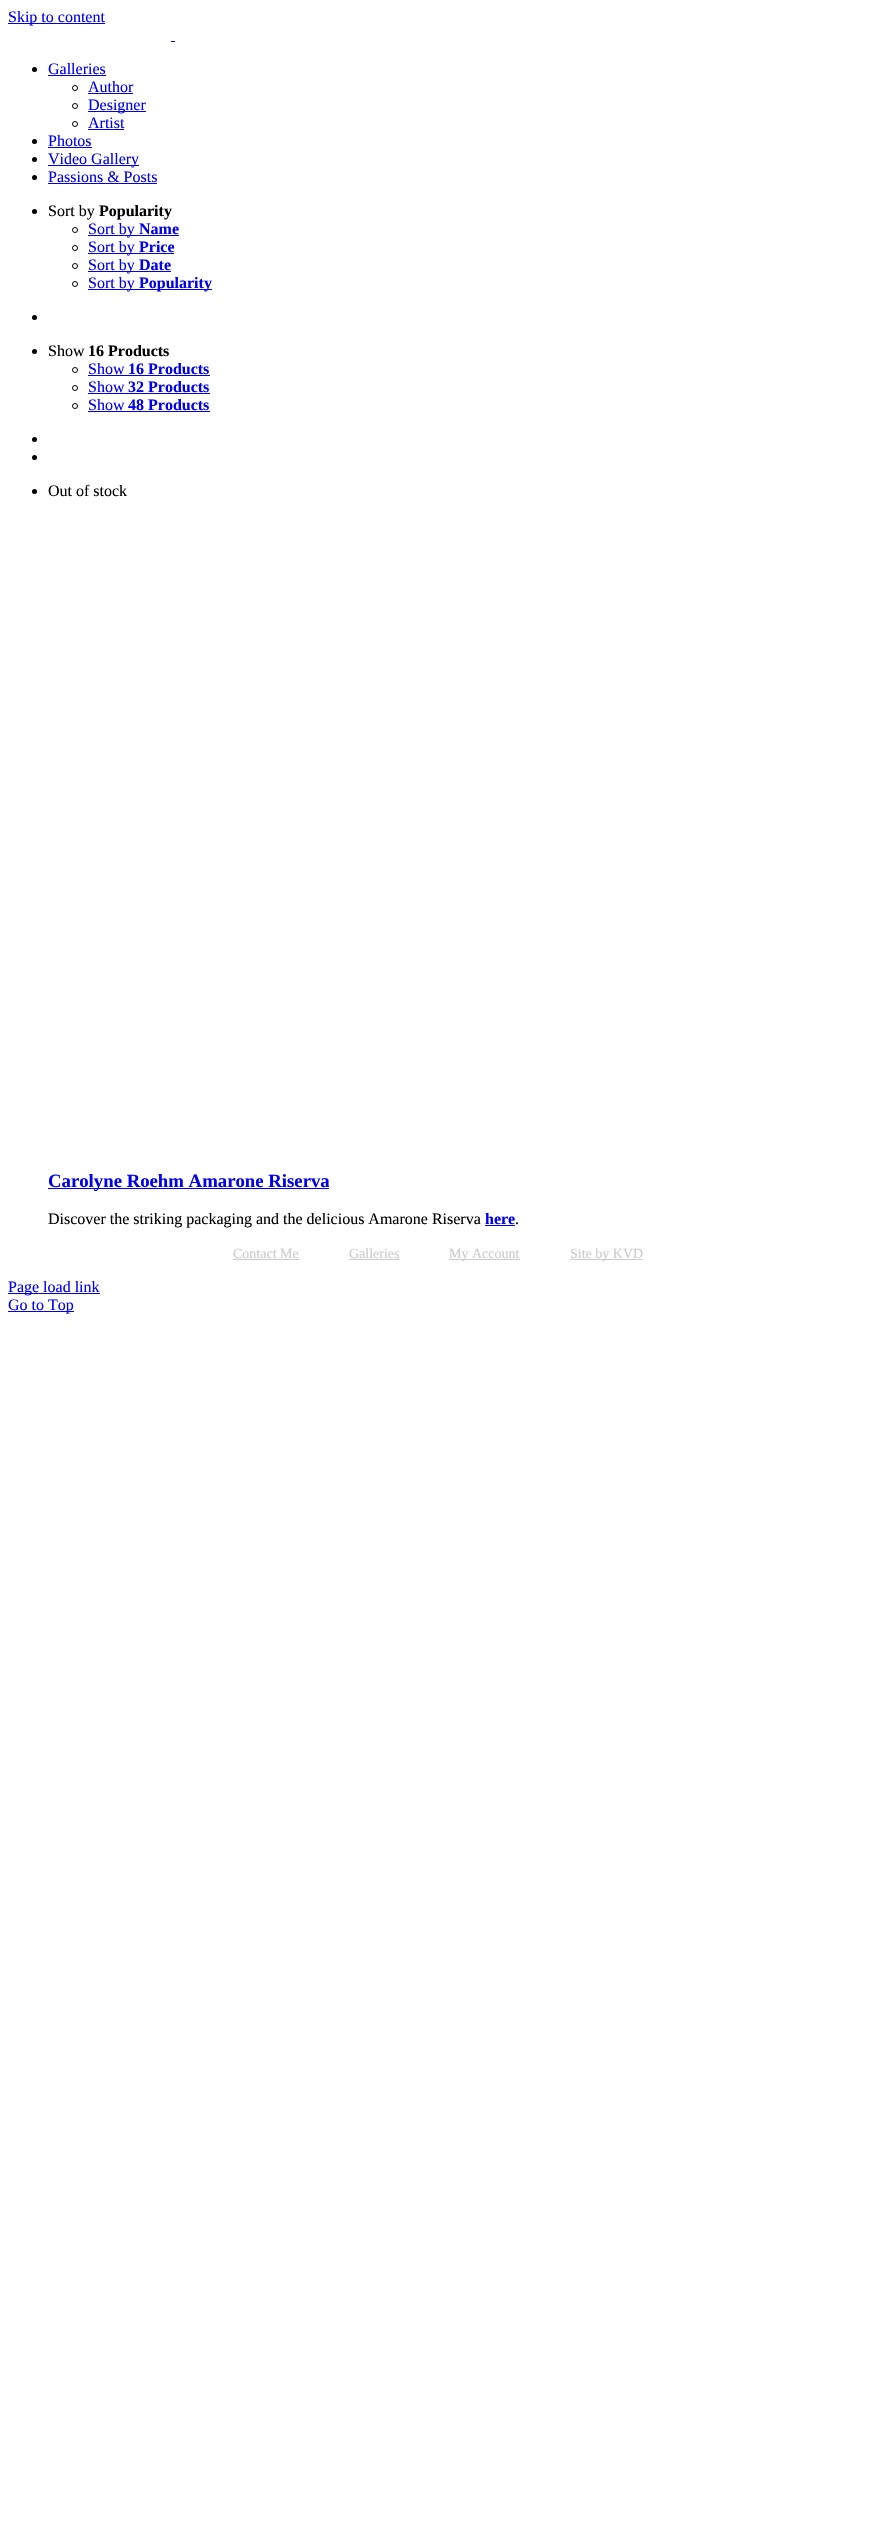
void draw(SkCanvas* canvas) {
  SkPaint paint;
  paint.setAntiAlias(true);
  auto face = [&](const char* family, int weight, float size, bool italic = false) {
    SkFontStyle style(weight, SkFontStyle::kNormal_Width,
      italic ? SkFontStyle::kItalic_Slant : SkFontStyle::kUpright_Slant);
    SkFont result(fontMgr->matchFamilyStyle(family, style), size);
    result.setSubpixel(true);
    return result;
  };
  canvas->clear(0xffffffff);
  paint.setColor(0xff0000ee);
  canvas->drawRect(SkRect::MakeXYWH(8, 23, 97, 1), paint);
  canvas->drawRect(SkRect::MakeXYWH(171, 41, 4, 1), paint);
  paint.setColor(0xff000000);
  canvas->drawCircle(34.5f, 69.5f, 2.5f, paint);
  paint.setColor(0xff0000ee);
  canvas->drawRect(SkRect::MakeXYWH(48, 75, 58, 1), paint);
  paint.setStroke(true);
  paint.setStrokeWidth(1);
  paint.setColor(0xff000000);
  canvas->drawCircle(75, 88, 2.5f, paint);
  paint.setStroke(false);
  paint.setColor(0xff0000ee);
  canvas->drawRect(SkRect::MakeXYWH(88, 93, 45, 1), paint);
  paint.setStroke(true);
  paint.setColor(0xff000000);
  canvas->drawCircle(75, 106, 2.5f, paint);
  paint.setStroke(false);
  paint.setColor(0xff0000ee);
  canvas->drawRect(SkRect::MakeXYWH(88, 111, 58, 1), paint);
  paint.setStroke(true);
  paint.setColor(0xff000000);
  canvas->drawCircle(75, 124, 2.5f, paint);
  paint.setStroke(false);
  paint.setColor(0xff0000ee);
  canvas->drawRect(SkRect::MakeXYWH(88, 129, 36, 1), paint);
  paint.setColor(0xff000000);
  canvas->drawCircle(34.5f, 141.5f, 2.5f, paint);
  paint.setColor(0xff0000ee);
  canvas->drawRect(SkRect::MakeXYWH(48, 147, 44, 1), paint);
  paint.setColor(0xff000000);
  canvas->drawCircle(34.5f, 159.5f, 2.5f, paint);
  paint.setColor(0xff0000ee);
  canvas->drawRect(SkRect::MakeXYWH(48, 165, 91, 1), paint);
  paint.setColor(0xff000000);
  canvas->drawCircle(34.5f, 177.5f, 2.5f, paint);
  paint.setColor(0xff0000ee);
  canvas->drawRect(SkRect::MakeXYWH(48, 183, 109, 1), paint);
  paint.setColor(0xff000000);
  canvas->drawCircle(34.5f, 211.5f, 2.5f, paint);
  paint.setStroke(true);
  canvas->drawCircle(75, 230, 2.5f, paint);
  paint.setStroke(false);
  paint.setColor(0xff0000ee);
  canvas->drawRect(SkRect::MakeXYWH(88, 235, 91, 1), paint);
  paint.setStroke(true);
  paint.setColor(0xff000000);
  canvas->drawCircle(75, 248, 2.5f, paint);
  paint.setStroke(false);
  paint.setColor(0xff0000ee);
  canvas->drawRect(SkRect::MakeXYWH(88, 253, 86, 1), paint);
  paint.setStroke(true);
  paint.setColor(0xff000000);
  canvas->drawCircle(75, 266, 2.5f, paint);
  paint.setStroke(false);
  paint.setColor(0xff0000ee);
  canvas->drawRect(SkRect::MakeXYWH(88, 271, 83, 1), paint);
  paint.setStroke(true);
  paint.setColor(0xff000000);
  canvas->drawCircle(75, 284, 2.5f, paint);
  paint.setStroke(false);
  paint.setColor(0xff0000ee);
  canvas->drawRect(SkRect::MakeXYWH(88, 289, 124, 1), paint);
  paint.setColor(0xff000000);
  canvas->drawCircle(34.5f, 317.5f, 2.5f, paint);
  canvas->drawCircle(34.5f, 351.5f, 2.5f, paint);
  paint.setStroke(true);
  canvas->drawCircle(75, 370, 2.5f, paint);
  paint.setStroke(false);
  paint.setColor(0xff0000ee);
  canvas->drawRect(SkRect::MakeXYWH(88, 375, 122, 1), paint);
  paint.setStroke(true);
  paint.setColor(0xff000000);
  canvas->drawCircle(75, 388, 2.5f, paint);
  paint.setStroke(false);
  paint.setColor(0xff0000ee);
  canvas->drawRect(SkRect::MakeXYWH(88, 393, 122, 1), paint);
  paint.setStroke(true);
  paint.setColor(0xff000000);
  canvas->drawCircle(75, 406, 2.5f, paint);
  paint.setStroke(false);
  paint.setColor(0xff0000ee);
  canvas->drawRect(SkRect::MakeXYWH(88, 411, 122, 1), paint);
  paint.setColor(0xff000000);
  canvas->drawCircle(34.5f, 439.5f, 2.5f, paint);
  canvas->drawCircle(34.5f, 457.5f, 2.5f, paint);
  canvas->drawCircle(34.5f, 491.5f, 2.5f, paint);
  {
    const struct { float x, y, w, h; SkColor color; } items[] = {
      {48, 1188, 281, 1, 0xff0000ee},
      {485, 1225, 30, 1, 0xff0000ee},
      {233, 1259, 66, 1, 0xffcccccc},
      {349, 1259, 50, 1, 0xffcccccc},
      {449, 1259, 71, 1, 0xffcccccc},
      {570, 1259, 73, 1, 0xffcccccc},
      {8, 1293, 92, 1, 0xff0000ee},
      {8, 1311, 66, 1, 0xff0000ee},
    };
    for (auto [x, y, w, h, color] : items) {
      paint.setColor(color);
      canvas->drawRect(SkRect::MakeXYWH(x, y, w, h), paint);
    }
  }
  auto f0 = face("Liberation Serif", 400, 16);
  {
    const struct { const char* s; float x, y; } items[] = {
      {"Skip to content", 8, 22},
      {"Galleries", 48, 74},
      {"Author", 88, 92},
      {"Designer", 88, 110},
      {"Artist", 88, 128},
      {"Photos", 48, 146},
      {"Video Gallery", 48, 164},
      {"Passions & Posts", 48, 182},
    };
    for (auto [s, x, y] : items) {
      canvas->drawString(s, x, y, f0, paint);
    }
  }
  paint.setColor(0xff000000);
  canvas->drawString("Sort by", 48, 216, f0, paint);
  auto f1 = face("Liberation Serif", 700, 16);
  canvas->drawString("Popularity", 99, 216, f1, paint);
  paint.setColor(0xff0000ee);
  canvas->drawString("Sort by", 88, 234, f0, paint);
  canvas->drawString("Name", 139, 234, f1, paint);
  canvas->drawString("Sort by", 88, 252, f0, paint);
  canvas->drawString("Price", 139, 252, f1, paint);
  canvas->drawString("Sort by", 88, 270, f0, paint);
  canvas->drawString("Date", 139, 270, f1, paint);
  canvas->drawString("Sort by", 88, 288, f0, paint);
  canvas->drawString("Popularity", 139, 288, f1, paint);
  paint.setColor(0xff000000);
  canvas->drawString("Show", 48, 356, f0, paint);
  canvas->drawString("16 Products", 88, 356, f1, paint);
  paint.setColor(0xff0000ee);
  canvas->drawString("Show", 88, 374, f0, paint);
  canvas->drawString("16 Products", 128, 374, f1, paint);
  canvas->drawString("Show", 88, 392, f0, paint);
  canvas->drawString("32 Products", 128, 392, f1, paint);
  canvas->drawString("Show", 88, 410, f0, paint);
  canvas->drawString("48 Products", 128, 410, f1, paint);
  paint.setColor(0xff000000);
  canvas->drawString("Out of stock", 48, 496, f0, paint);
  auto f2 = face("Liberation Serif", 700, 18.75f);
  paint.setColor(0xff0000ee);
  canvas->drawString("Carolyne Roehm Amarone Riserva", 48, 1187, f2, paint);
  paint.setColor(0xff000000);
  canvas->drawString("Discover the striking packaging and the delicious Amarone Riserva", 48, 1224, f0, paint);
  paint.setColor(0xff0000ee);
  canvas->drawString("here", 485, 1224, f1, paint);
  paint.setColor(0xff000000);
  canvas->drawString(".", 515, 1224, f0, paint);
  auto f3 = face("Liberation Serif", 400, 14);
  paint.setColor(0xffcccccc);
  {
    const struct { const char* s; float x, y; } items[] = {
      {"Contact Me", 233, 1258},
      {"Galleries", 349, 1258},
      {"My Account", 449, 1258},
      {"Site by KVD", 570, 1258},
    };
    for (auto [s, x, y] : items) {
      canvas->drawString(s, x, y, f3, paint);
    }
  }
  paint.setColor(0xff0000ee);
  canvas->drawString("Page load link", 8, 1292, f0, paint);
  canvas->drawString("Go to Top", 8, 1310, f0, paint);
}
